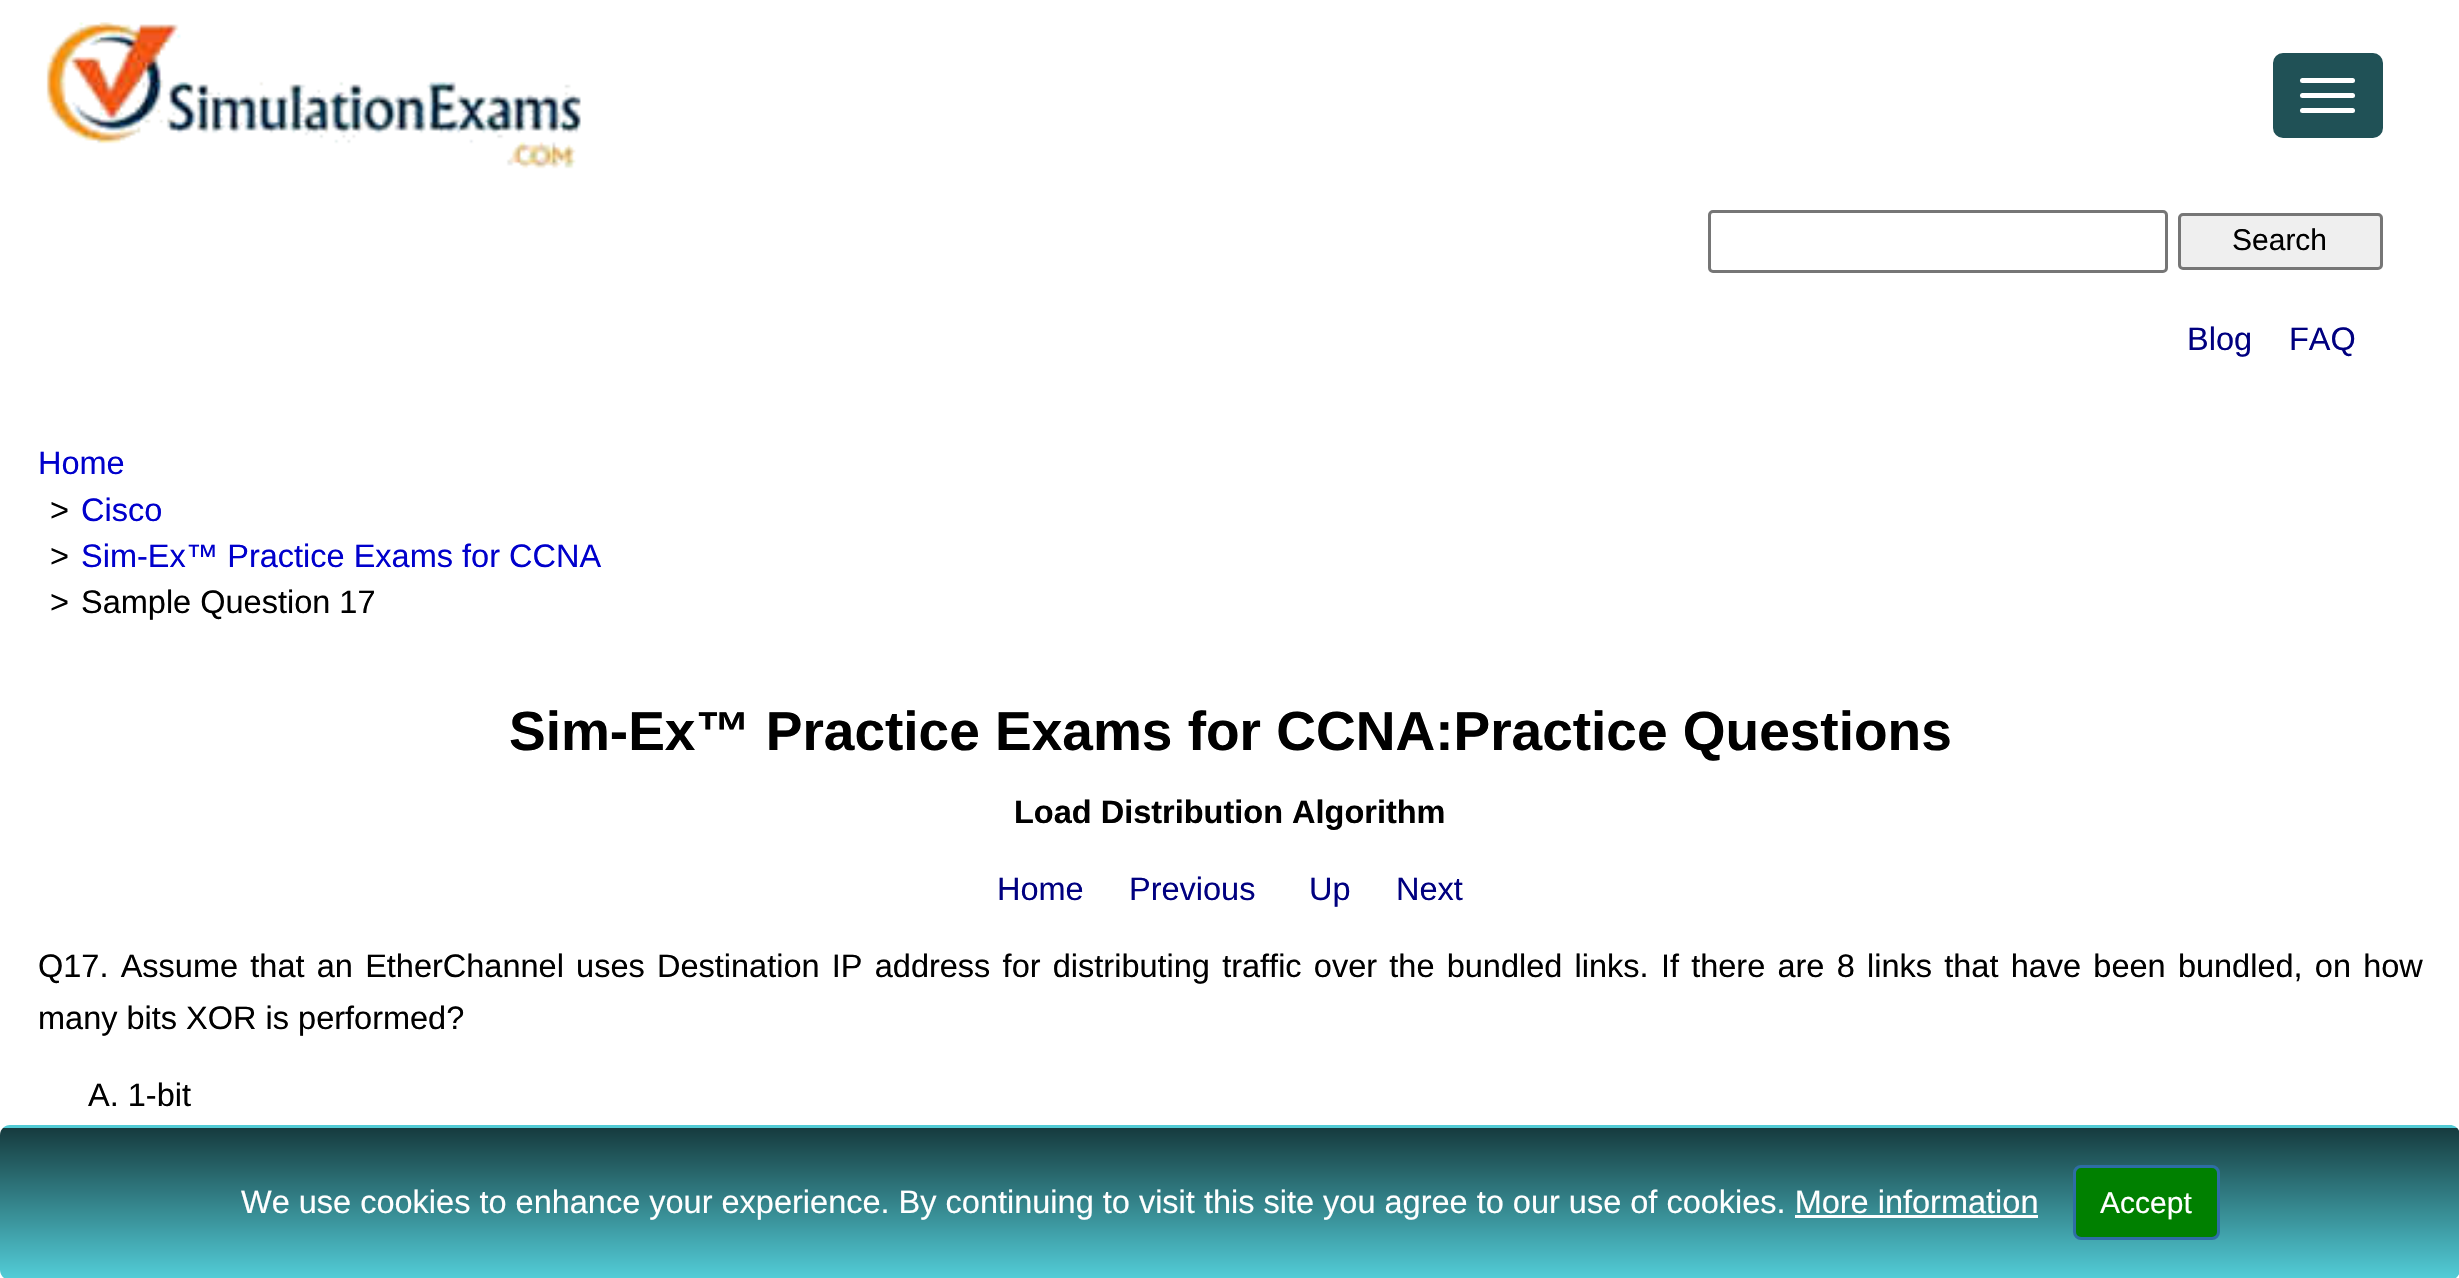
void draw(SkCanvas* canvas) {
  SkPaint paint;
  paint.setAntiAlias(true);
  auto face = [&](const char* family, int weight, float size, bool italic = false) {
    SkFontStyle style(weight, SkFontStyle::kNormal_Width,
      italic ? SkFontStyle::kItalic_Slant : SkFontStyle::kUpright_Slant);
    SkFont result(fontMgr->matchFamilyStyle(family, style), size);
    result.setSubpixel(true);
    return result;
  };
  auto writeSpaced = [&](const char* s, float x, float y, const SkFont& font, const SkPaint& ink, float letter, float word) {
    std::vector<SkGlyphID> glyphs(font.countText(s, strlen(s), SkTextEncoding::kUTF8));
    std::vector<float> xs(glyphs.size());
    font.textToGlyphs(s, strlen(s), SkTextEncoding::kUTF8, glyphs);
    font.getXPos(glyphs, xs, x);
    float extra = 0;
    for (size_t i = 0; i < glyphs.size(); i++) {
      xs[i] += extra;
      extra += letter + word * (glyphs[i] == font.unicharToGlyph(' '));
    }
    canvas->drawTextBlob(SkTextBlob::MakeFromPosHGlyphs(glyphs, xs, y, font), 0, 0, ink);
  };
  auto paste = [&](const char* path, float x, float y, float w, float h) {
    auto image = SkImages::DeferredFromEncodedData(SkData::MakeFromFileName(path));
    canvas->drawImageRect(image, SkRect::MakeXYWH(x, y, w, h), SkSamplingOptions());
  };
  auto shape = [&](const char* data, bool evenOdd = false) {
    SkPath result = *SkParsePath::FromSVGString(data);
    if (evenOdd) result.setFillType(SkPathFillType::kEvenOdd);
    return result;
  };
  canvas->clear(0xffffffff);
  paste("img/1.png", 46, 22, 535, 147);
  paint.setColor(0xff205156);
  canvas->drawRoundRect(SkRect::MakeXYWH(2274.5f, 54.5f, 107, 82), 8.5f, 8.5f, paint);
  paint.setStroke(true);
  paint.setStrokeWidth(3);
  canvas->drawRoundRect(SkRect::MakeXYWH(2274.5f, 54.5f, 107, 82), 8.5f, 8.5f, paint);
  paint.setStroke(false);
  paint.setColor(0xffffffff);
  canvas->drawRoundRect(SkRect::MakeXYWH(2300, 78, 55, 5), 2.5f, 2.5f, paint);
  canvas->drawRoundRect(SkRect::MakeXYWH(2300, 93, 55, 5), 2.5f, 2.5f, paint);
  canvas->drawRoundRect(SkRect::MakeXYWH(2300, 108, 55, 5), 2.5f, 2.5f, paint);
  paint.setStroke(true);
  paint.setColor(0xff767676);
  canvas->drawRoundRect(SkRect::MakeXYWH(1709.5f, 211.5f, 457, 60), 3.5f, 3.5f, paint);
  paint.setStroke(false);
  paint.setColor(0xffefefef);
  canvas->drawRoundRect(SkRect::MakeXYWH(2179.5f, 214.5f, 202, 54), 3.5f, 3.5f, paint);
  paint.setStroke(true);
  paint.setColor(0xff767676);
  canvas->drawRoundRect(SkRect::MakeXYWH(2179.5f, 214.5f, 202, 54), 3.5f, 3.5f, paint);
  canvas->save();
  canvas->clipPath(shape("M10 1125H2450C2455.5 1125 2460 1129.5 2460 1135V1270C2460 1275.5 2455.5 1280 2450 1280H10C4.5 1280 0 1275.5 0 1270V1135C0 1129.5 4.5 1125 10 1125Z"), true);
  paint.setStroke(false);
  {
    const SkColor colors[] = {0xff163b3e, 0xff52ccd7};
    const float stops[] = {0, 1};
    const SkPoint ends[] = {{2.5f, 978}, {2.5f, 1128}};
    paint.setShader(SkGradientShader::MakeLinear(ends, colors, stops, 2, SkTileMode::kClamp));
    paint.setAlpha(255);
  }
  canvas->drawRect(SkRect::MakeXYWH(0, 1125, 2459, 3), paint);
  {
    const SkColor colors[] = {0xff163b3e, 0xff52ccd7};
    const float stops[] = {0, 1};
    const SkPoint ends[] = {{2.5f, 1128}, {2.5f, 1278}};
    paint.setShader(SkGradientShader::MakeLinear(ends, colors, stops, 2, SkTileMode::kClamp));
    paint.setAlpha(255);
  }
  canvas->drawRect(SkRect::MakeXYWH(0, 1128, 2459, 150), paint);
  canvas->restore();
  paint.setShader(nullptr);
  paint.setColor(0xff008000);
  canvas->drawRoundRect(SkRect::MakeXYWH(2074.5f, 1166.5f, 144, 72), 6.5f, 6.5f, paint);
  paint.setStroke(true);
  paint.setColor(0xff2e6da4);
  canvas->drawRoundRect(SkRect::MakeXYWH(2074.5f, 1166.5f, 144, 72), 6.5f, 6.5f, paint);
  paint.setStroke(false);
  paint.setColor(0xffffffff);
  canvas->drawRect(SkRect::MakeXYWH(1795, 1215, 243, 3), paint);
  auto f0 = face("Liberation Sans", 400, 30);
  paint.setColor(0xff000000);
  canvas->drawString("Search", 2232, 250, f0, paint);
  auto f1 = face("Liberation Sans", 400, 32.5f);
  paint.setColor(0xff000080);
  canvas->drawString("Blog", 2187, 350, f1, paint);
  canvas->drawString("FAQ", 2289, 350, f1, paint);
  paint.setColor(0xff0000cc);
  canvas->drawString("Home", 38, 474, f1, paint);
  paint.setColor(0xff000000);
  canvas->drawString(">", 50, 521, f1, paint);
  paint.setColor(0xff0000cc);
  canvas->drawString("Cisco", 81, 521, f1, paint);
  paint.setColor(0xff000000);
  canvas->drawString(">", 50, 567, f1, paint);
  paint.setColor(0xff0000cc);
  canvas->drawString("Sim-Ex™ Practice Exams for CCNA", 81, 567, f1, paint);
  paint.setColor(0xff000000);
  canvas->drawString(">", 50, 613, f1, paint);
  canvas->drawString("Sample Question 17", 81, 613, f1, paint);
  auto f2 = face("Liberation Sans", 700, 55);
  canvas->drawString("Sim-Ex™ Practice Exams for CCNA:Practice Questions", 509, 750, f2, paint);
  auto f3 = face("Liberation Sans", 700, 32.5f);
  canvas->drawString("Load Distribution Algorithm", 1014, 823, f3, paint);
  paint.setColor(0xff000080);
  {
    const struct { const char* s; float x, y; } items[] = {
      {"Home", 997, 900},
      {"Previous", 1129, 900},
      {"Up", 1309, 900},
      {"Next", 1396, 900},
    };
    for (auto [s, x, y] : items) {
      canvas->drawString(s, x, y, f1, paint);
    }
  }
  paint.setColor(0xff000000);
  writeSpaced("Q17. Assume that an EtherChannel uses Destination IP address for distributing traffic over the bundled links. If there are 8 links that have been bundled, on how", 38, 977, f1, paint, 0, 3.2f);
  canvas->drawString("many bits XOR is performed?", 38, 1029, f1, paint);
  canvas->drawString("A. 1-bit", 88, 1106, f1, paint);
  paint.setColor(0xffffffff);
  canvas->drawString("We use cookies to enhance your experience. By continuing to visit this site you agree to our use of cookies. More information", 241, 1213, f1, paint);
  canvas->drawString("Accept", 2100, 1213, f0, paint);
}
